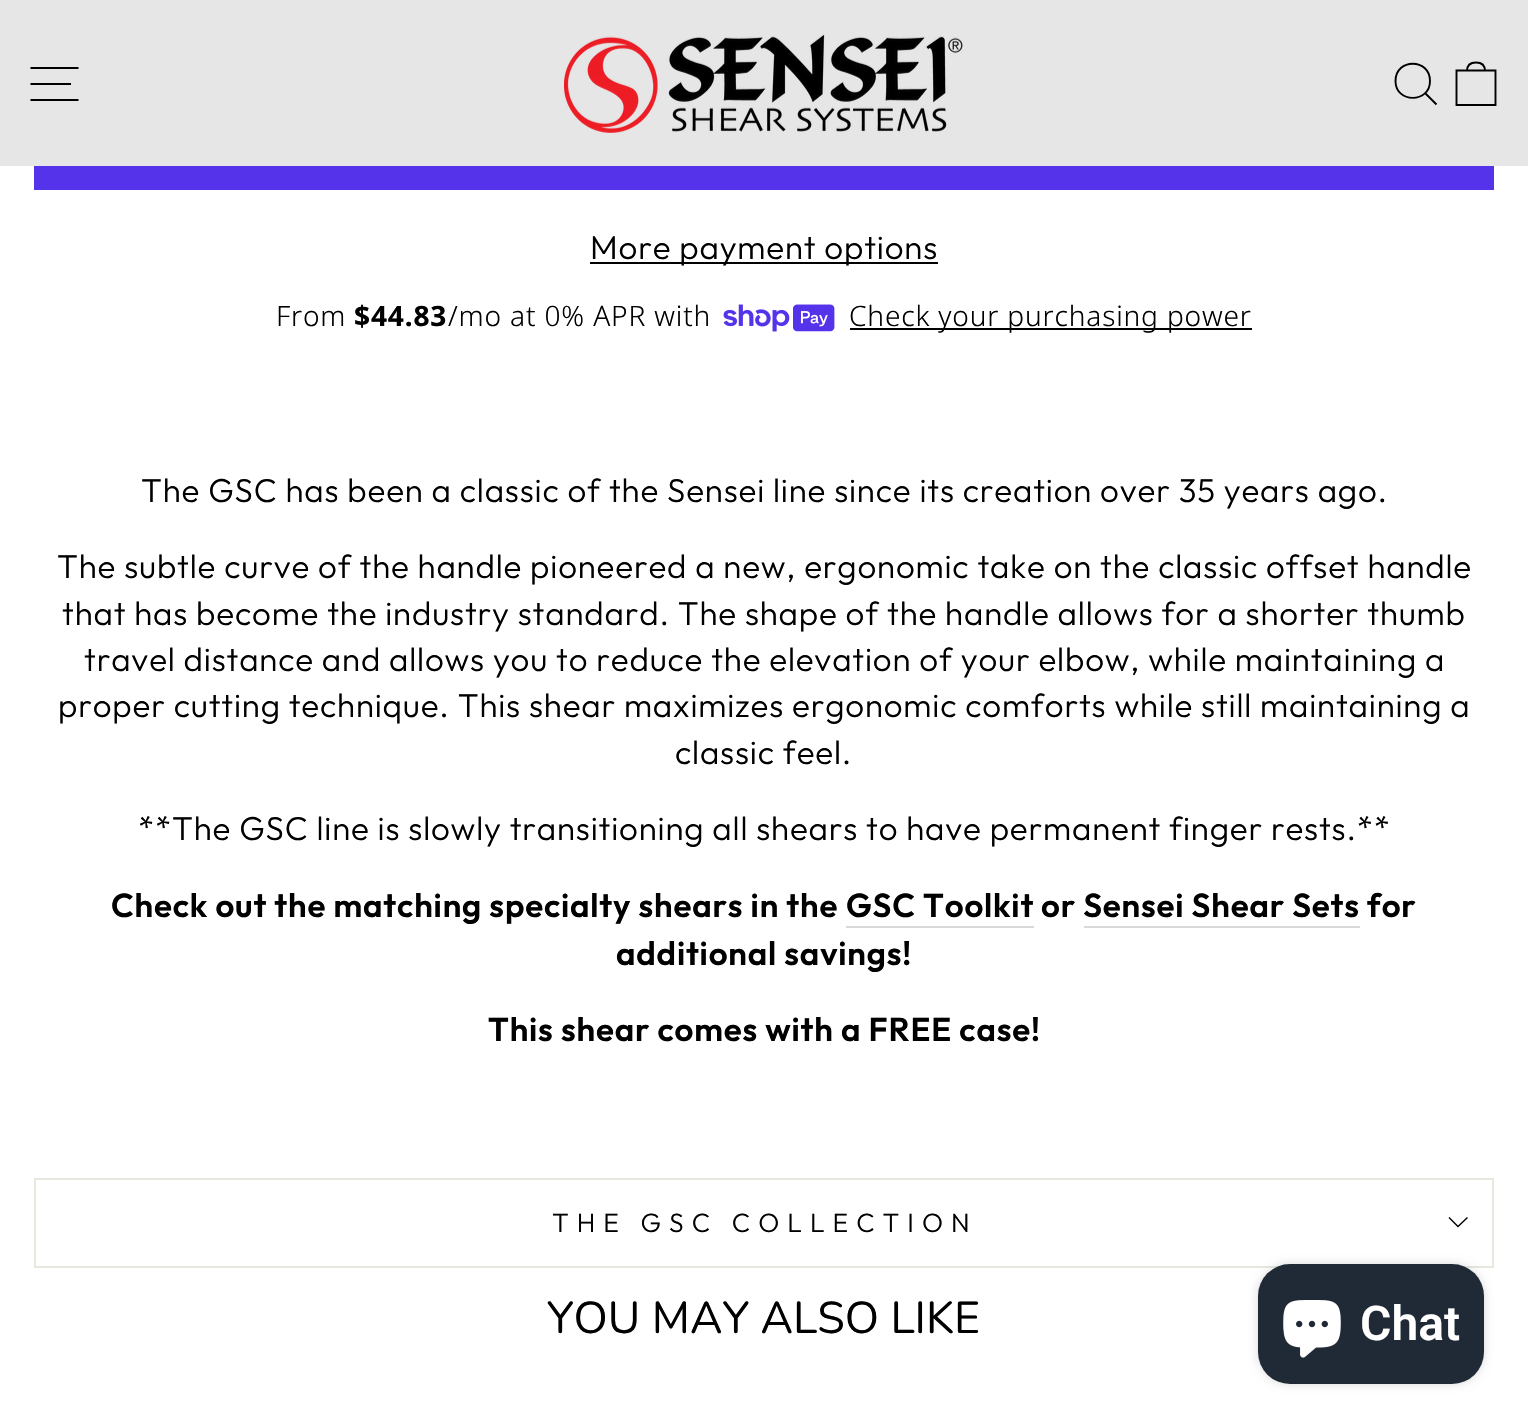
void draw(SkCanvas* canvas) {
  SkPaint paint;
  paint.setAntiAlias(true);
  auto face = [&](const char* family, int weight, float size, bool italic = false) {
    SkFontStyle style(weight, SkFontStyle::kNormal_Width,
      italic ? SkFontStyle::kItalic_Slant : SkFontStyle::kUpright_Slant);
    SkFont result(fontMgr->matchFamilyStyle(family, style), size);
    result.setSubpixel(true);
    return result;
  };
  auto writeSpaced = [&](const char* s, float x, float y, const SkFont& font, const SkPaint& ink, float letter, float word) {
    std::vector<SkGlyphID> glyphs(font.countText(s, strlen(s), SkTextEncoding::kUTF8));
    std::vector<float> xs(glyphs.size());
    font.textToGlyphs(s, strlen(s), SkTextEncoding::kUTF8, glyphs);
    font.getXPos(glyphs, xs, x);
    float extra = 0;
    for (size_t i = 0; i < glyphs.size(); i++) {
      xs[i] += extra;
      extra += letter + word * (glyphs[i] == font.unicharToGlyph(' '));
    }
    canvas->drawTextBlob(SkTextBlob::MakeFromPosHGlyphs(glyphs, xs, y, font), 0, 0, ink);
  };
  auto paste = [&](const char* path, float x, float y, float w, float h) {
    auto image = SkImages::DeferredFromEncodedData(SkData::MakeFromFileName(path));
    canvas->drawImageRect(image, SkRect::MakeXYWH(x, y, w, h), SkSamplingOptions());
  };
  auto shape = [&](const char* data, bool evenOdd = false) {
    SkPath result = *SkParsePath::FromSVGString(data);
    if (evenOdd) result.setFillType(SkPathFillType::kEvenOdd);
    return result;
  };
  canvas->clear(0xffffffff);
  paint.setColor(0xffe6e6e6);
  canvas->drawRect(SkRect::MakeXYWH(0, 0, 1528, 166), paint);
  paint.setStroke(true);
  paint.setStrokeWidth(1.9f);
  paint.setColor(0xff000000);
  canvas->drawPath(shape("M30.5 68H78.5M30.5 84H71M30.5 100H78.5"), paint);
  paste("img/1.png", 564, 34, 399, 99);
  canvas->drawPath(shape("M1430 81C1430 103.5 1395.5 103.5 1395.5 81C1395.5 58 1430 58 1430 81ZM1436.5 104.5L1425.5 93.5"), paint);
  canvas->drawPath(shape("M1456.5 70.5H1495.5V105H1456.5ZM1467 71C1467 64 1471 62.5 1476 62.5C1481 62.5 1485 64 1485 71"), paint);
  paint.setStroke(false);
  paint.setColor(0xff5433eb);
  canvas->drawRect(SkRect::MakeXYWH(34, 166, 1460, 24), paint);
  paint.setColor(0xff000000);
  canvas->drawRect(SkRect::MakeXYWH(590, 262, 348, 2), paint);
  paste("img/2.png", 723, 304, 112, 28);
  {
    const struct { float x, y, w, h; SkColor color; } items[] = {
      {850, 328, 402, 2, 0xff000000},
      {846, 926, 188, 2, 0xffd9d9d9},
      {1084, 926, 276, 2, 0xffd9d9d9},
      {34, 1266, 1460, 2, 0xffe8e8e1},
      {34, 1178, 1460, 2, 0xffe8e8e1},
      {1492, 1178, 2, 88, 0xffe8e8e1},
      {34, 1178, 2, 88, 0xffe8e8e1},
    };
    for (auto [x, y, w, h, color] : items) {
      paint.setColor(color);
      canvas->drawRect(SkRect::MakeXYWH(x, y, w, h), paint);
    }
  }
  paint.setStroke(true);
  paint.setStrokeWidth(1.4f);
  paint.setColor(0xff000000);
  canvas->drawPath(shape("M1449 1217.5L1458 1226.5L1467.5 1217.5"), paint);
  paint.setStroke(false);
  paint.setColor(0x26000000);
  paint.setMaskFilter(SkMaskFilter::MakeBlur(kNormal_SkBlurStyle, 5));
  canvas->drawRoundRect(SkRect::MakeXYWH(1258, 1264, 226, 120), 32, 32, paint);
  paint.setMaskFilter(nullptr);
  paint.setColor(0xff202a36);
  canvas->drawRoundRect(SkRect::MakeXYWH(1258, 1264, 226, 120), 32, 32, paint);
  paste("img/3.png", 1283, 1300, 58, 58);
  auto f0 = face("Outfit", 300, 33.1f);
  paint.setColor(0xff000000);
  writeSpaced("More payment options", 590, 259, f0, paint, 0.83f, 0);
  auto f1 = face("Noto Sans", 300, 28.1f);
  writeSpaced("From", 276, 326, f1, paint, 0.83f, 0);
  auto f2 = face("Noto Sans", 700, 28.1f);
  writeSpaced("$44.83", 354, 326, f2, paint, 0.83f, 0);
  writeSpaced("/mo at 0% APR with", 448, 326, f1, paint, 0.83f, 0);
  writeSpaced("Check your purchasing power", 849, 326, f1, paint, 0.83f, 0);
  {
    const struct { const char* s; float x, y; } items[] = {
      {"The GSC has been a classic of the Sensei line since its creation over 35 years ago.", 141, 502},
      {"The subtle curve of the handle pioneered a new, ergonomic take on the classic offset handle", 57, 578},
      {"that has become the industry standard. The shape of the handle allows for a shorter thumb", 62, 625},
      {"travel distance and allows you to reduce the elevation of your elbow, while maintaining a", 84, 671},
      {"proper cutting technique. This shear maximizes ergonomic comforts while still maintaining a", 58, 717},
      {"classic feel.", 675, 764},
      {"**The GSC line is slowly transitioning all shears to have permanent finger rests.**", 138, 840},
    };
    for (auto [s, x, y] : items) {
      writeSpaced(s, x, y, f0, paint, 0.83f, 0);
    }
  }
  auto f3 = face("Outfit", 600, 33.1f);
  {
    const struct { const char* s; float x, y; } items[] = {
      {"Check out the matching specialty shears in the", 111, 917},
      {"GSC Toolkit", 846, 917},
      {"or Sensei Shear Sets", 1041, 917},
      {"for", 1367, 917},
      {"additional savings!", 616, 965},
      {"This shear comes with a FREE case!", 488, 1041},
    };
    for (auto [s, x, y] : items) {
      writeSpaced(s, x, y, f3, paint, 0.83f, 0);
    }
  }
  auto f4 = face("Outfit", 300, 26.5f);
  writeSpaced("THE GSC COLLECTION", 552, 1232, f4, paint, 8, 0);
  auto f5 = face("Nunito", 400, 44.6f);
  canvas->drawString("YOU MAY ALSO LIKE", 547, 1333, f5, paint);
  auto f6 = face("Roboto", 600, 48);
  paint.setColor(0xffffffff);
  canvas->drawString("Chat", 1360, 1340, f6, paint);
}
